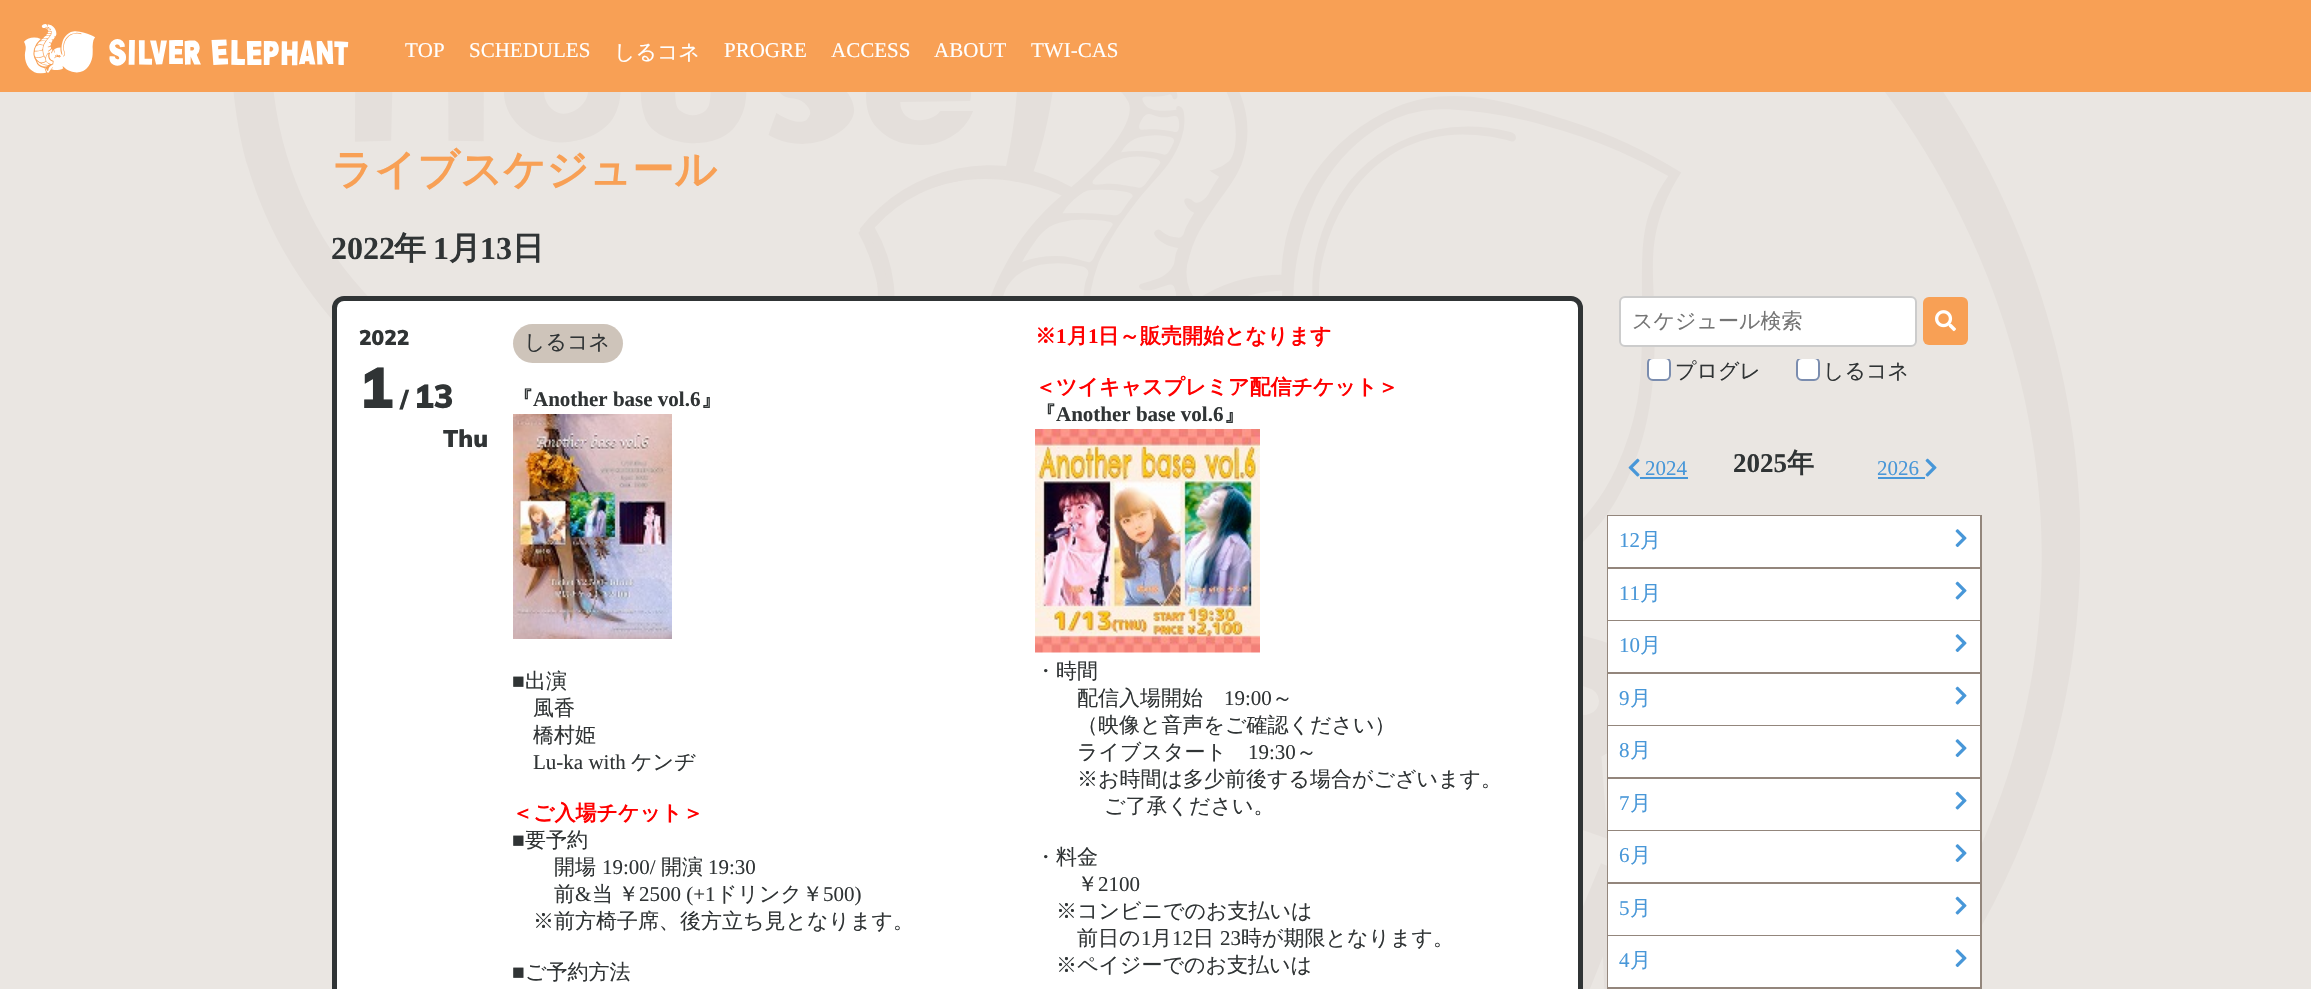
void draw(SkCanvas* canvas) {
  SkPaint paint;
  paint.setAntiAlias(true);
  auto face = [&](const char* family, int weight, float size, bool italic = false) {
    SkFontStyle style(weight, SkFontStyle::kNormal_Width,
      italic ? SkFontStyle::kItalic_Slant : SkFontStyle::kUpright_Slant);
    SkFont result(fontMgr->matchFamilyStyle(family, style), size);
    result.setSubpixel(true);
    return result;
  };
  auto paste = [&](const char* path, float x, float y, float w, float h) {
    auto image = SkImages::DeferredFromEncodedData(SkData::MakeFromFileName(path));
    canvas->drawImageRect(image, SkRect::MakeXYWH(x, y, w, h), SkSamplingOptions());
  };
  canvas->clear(0xffeae6e2);
  paste("img/1.png", 233, 92, 1847, 897);
  paint.setColor(0xfff8a055);
  canvas->drawRect(SkRect::MakeXYWH(0, 0, 2311, 92), paint);
  paste("img/2.png", 24, 24, 325, 50);
  paint.setColor(0xffffffff);
  canvas->drawRoundRect(SkRect::MakeXYWH(334.5f, 298.5f, 1246, 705), 9.5f, 9.5f, paint);
  paint.setStroke(true);
  paint.setStrokeWidth(5);
  paint.setColor(0xff303435);
  canvas->drawRoundRect(SkRect::MakeXYWH(334.5f, 298.5f, 1246, 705), 9.5f, 9.5f, paint);
  paint.setStroke(false);
  paint.setColor(0xffcec4ba);
  canvas->drawRoundRect(SkRect::MakeXYWH(513, 324, 110, 39), 19.5f, 19.5f, paint);
  paste("img/3.png", 513, 414, 159, 225);
  paste("img/4.png", 1035, 429, 225, 224);
  paint.setColor(0xffffffff);
  canvas->drawRoundRect(SkRect::MakeXYWH(1620, 297, 296, 49), 5, 5, paint);
  paint.setStroke(true);
  paint.setStrokeWidth(2);
  paint.setColor(0xffcccccc);
  canvas->drawRoundRect(SkRect::MakeXYWH(1620, 297, 296, 49), 5, 5, paint);
  paint.setStroke(false);
  paint.setColor(0xfff8a055);
  canvas->drawRoundRect(SkRect::MakeXYWH(1923, 297, 45, 48), 6, 6, paint);
  paste("img/5.png", 1935, 310, 21, 22);
  canvas->save();
  canvas->clipRect(SkRect::MakeXYWH(1647, 359, 114, 27));
  paint.setColor(0xffffffff);
  canvas->drawRoundRect(SkRect::MakeXYWH(1648, 358, 22, 22), 5, 5, paint);
  paint.setStroke(true);
  paint.setColor(0xff7b8daf);
  canvas->drawRoundRect(SkRect::MakeXYWH(1648, 358, 22, 22), 5, 5, paint);
  canvas->restore();
  canvas->save();
  canvas->clipRect(SkRect::MakeXYWH(1796, 359, 114, 27));
  paint.setStroke(false);
  paint.setColor(0xffffffff);
  canvas->drawRoundRect(SkRect::MakeXYWH(1797, 358, 22, 22), 5, 5, paint);
  paint.setStroke(true);
  paint.setColor(0xff7b8daf);
  canvas->drawRoundRect(SkRect::MakeXYWH(1797, 358, 22, 22), 5, 5, paint);
  canvas->restore();
  paste("img/6.png", 1628, 458, 12, 19);
  paint.setStroke(false);
  paint.setColor(0xff4897d8);
  canvas->drawRect(SkRect::MakeXYWH(1640, 477, 48, 2), paint);
  canvas->drawRect(SkRect::MakeXYWH(1878, 477, 47, 2), paint);
  paste("img/7.png", 1925, 458, 12, 19);
  paint.setStroke(true);
  paint.setColor(0xff93867c);
  canvas->drawRect(SkRect::MakeXYWH(1608, 516, 373, 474), paint);
  paint.setStroke(false);
  paint.setColor(0xffffffff);
  canvas->drawRect(SkRect::MakeXYWH(1608, 516, 372, 51), paint);
  paint.setColor(0xff93867c);
  canvas->drawRect(SkRect::MakeXYWH(1608, 567, 372, 2), paint);
  paste("img/8.png", 1955, 529, 12, 19);
  paint.setColor(0xffffffff);
  canvas->drawRect(SkRect::MakeXYWH(1608, 569, 372, 51), paint);
  paint.setColor(0xff93867c);
  canvas->drawRect(SkRect::MakeXYWH(1608, 620, 372, 1), paint);
  paste("img/9.png", 1955, 581, 12, 19);
  paint.setColor(0xffffffff);
  canvas->drawRect(SkRect::MakeXYWH(1608, 621, 372, 51), paint);
  paint.setColor(0xff93867c);
  canvas->drawRect(SkRect::MakeXYWH(1608, 672, 372, 2), paint);
  paste("img/8.png", 1955, 634, 12, 19);
  paint.setColor(0xffffffff);
  canvas->drawRect(SkRect::MakeXYWH(1608, 674, 372, 51), paint);
  paint.setColor(0xff93867c);
  canvas->drawRect(SkRect::MakeXYWH(1608, 725, 372, 1), paint);
  paste("img/9.png", 1955, 686, 12, 19);
  paint.setColor(0xffffffff);
  canvas->drawRect(SkRect::MakeXYWH(1608, 726, 372, 51), paint);
  paint.setColor(0xff93867c);
  canvas->drawRect(SkRect::MakeXYWH(1608, 777, 372, 2), paint);
  paste("img/8.png", 1955, 739, 12, 19);
  paint.setColor(0xffffffff);
  canvas->drawRect(SkRect::MakeXYWH(1608, 779, 372, 51), paint);
  paint.setColor(0xff93867c);
  canvas->drawRect(SkRect::MakeXYWH(1608, 830, 372, 1), paint);
  paste("img/9.png", 1955, 791, 12, 19);
  paint.setColor(0xffffffff);
  canvas->drawRect(SkRect::MakeXYWH(1608, 831, 372, 51), paint);
  paint.setColor(0xff93867c);
  canvas->drawRect(SkRect::MakeXYWH(1608, 882, 372, 2), paint);
  paste("img/8.png", 1955, 844, 12, 19);
  paint.setColor(0xffffffff);
  canvas->drawRect(SkRect::MakeXYWH(1608, 884, 372, 51), paint);
  paint.setColor(0xff93867c);
  canvas->drawRect(SkRect::MakeXYWH(1608, 935, 372, 1), paint);
  paste("img/9.png", 1955, 896, 12, 19);
  paint.setColor(0xffffffff);
  canvas->drawRect(SkRect::MakeXYWH(1608, 936, 372, 51), paint);
  paint.setColor(0xff93867c);
  canvas->drawRect(SkRect::MakeXYWH(1608, 987, 372, 2), paint);
  paste("img/8.png", 1955, 949, 12, 19);
  auto f0 = face("Liberation Serif", 400, 21);
  paint.setColor(0xffffffff);
  canvas->drawString("TOP", 405, 57, f0, paint);
  canvas->drawString("SCHEDULES", 469, 57, f0, paint);
  auto f1 = face("WenQuanYi Zen Hei", 500, 21);
  canvas->drawString("しるコネ", 614, 59, f1, paint);
  {
    const struct { const char* s; float x, y; } items[] = {
      {"PROGRE", 724, 57},
      {"ACCESS", 831, 57},
      {"ABOUT", 934, 57},
      {"TWI-CAS", 1031, 57},
    };
    for (auto [s, x, y] : items) {
      canvas->drawString(s, x, y, f0, paint);
    }
  }
  auto f2 = face("WenQuanYi Zen Hei", 700, 42);
  paint.setColor(0xfff8a055);
  canvas->drawString("ライブスケジュール", 331, 184, f2, paint);
  auto f3 = face("Liberation Serif", 700, 32);
  paint.setColor(0xff303435);
  canvas->drawString("2022", 331, 259, f3, paint);
  auto f4 = face("WenQuanYi Zen Hei", 700, 32);
  canvas->drawString("年", 394, 259, f4, paint);
  canvas->drawString("1", 433, 259, f3, paint);
  canvas->drawString("月", 449, 259, f4, paint);
  canvas->drawString("13", 480, 259, f3, paint);
  canvas->drawString("日", 512, 259, f4, paint);
  auto f5 = face("Muli", 900, 21);
  canvas->drawString("2022", 359, 345, f5, paint);
  auto f6 = face("Muli", 900, 57);
  canvas->drawString("1", 359, 408, f6, paint);
  auto f7 = face("Muli", 900, 24);
  canvas->drawString("/", 400, 408, f7, paint);
  auto f8 = face("Muli", 900, 33);
  canvas->drawString("13", 414, 408, f8, paint);
  canvas->drawString("Thu", 443, 447, f7, paint);
  canvas->drawString("しるコネ", 524, 349, f1, paint);
  auto f9 = face("WenQuanYi Zen Hei", 700, 21);
  canvas->drawString("『", 512, 406, f9, paint);
  auto f10 = face("Liberation Serif", 700, 21);
  canvas->drawString("Another base vol.6", 533, 406, f10, paint);
  canvas->drawString("』", 701, 406, f9, paint);
  canvas->drawString("■", 512, 688, f0, paint);
  {
    const struct { const char* s; float x, y; } items[] = {
      {"出演", 525, 688},
      {"風香", 533, 715},
      {"橋村姫", 533, 742},
    };
    for (auto [s, x, y] : items) {
      canvas->drawString(s, x, y, f1, paint);
    }
  }
  canvas->drawString("Lu-ka with", 533, 769, f0, paint);
  canvas->drawString("ケンヂ", 631, 769, f1, paint);
  paint.setColor(0xffff0000);
  canvas->drawString("＜ご入場チケット＞", 512, 820, f9, paint);
  paint.setColor(0xff303435);
  canvas->drawString("■", 512, 847, f0, paint);
  canvas->drawString("要予約", 525, 847, f1, paint);
  canvas->drawString("開場", 554, 874, f1, paint);
  canvas->drawString("19:00/", 602, 874, f0, paint);
  canvas->drawString("開演", 661, 874, f1, paint);
  canvas->drawString("19:30", 708, 874, f0, paint);
  canvas->drawString("前", 554, 901, f1, paint);
  canvas->drawString("&", 575, 901, f0, paint);
  canvas->drawString("当", 592, 901, f1, paint);
  canvas->drawString("￥", 618, 901, f1, paint);
  canvas->drawString("2500 (+1", 639, 901, f0, paint);
  canvas->drawString("ドリンク￥", 716, 901, f1, paint);
  canvas->drawString("500)", 823, 901, f0, paint);
  canvas->drawString("※前方椅子席、後方立ち見となります。", 533, 928, f1, paint);
  canvas->drawString("■", 512, 979, f0, paint);
  canvas->drawString("ご予約方法", 525, 979, f1, paint);
  paint.setColor(0xffff0000);
  canvas->drawString("※", 1035, 343, f9, paint);
  canvas->drawString("1", 1056, 343, f10, paint);
  canvas->drawString("月", 1067, 343, f9, paint);
  canvas->drawString("1", 1088, 343, f10, paint);
  canvas->drawString("日～販売開始となります", 1098, 343, f9, paint);
  canvas->drawString("＜ツイキャスプレミア配信チケット＞", 1035, 394, f9, paint);
  paint.setColor(0xff303435);
  canvas->drawString("『", 1035, 421, f9, paint);
  canvas->drawString("Another base vol.6", 1056, 421, f10, paint);
  canvas->drawString("』", 1224, 421, f9, paint);
  canvas->drawString("・時間", 1035, 678, f1, paint);
  canvas->drawString("配信入場開始", 1077, 705, f1, paint);
  canvas->drawString("19:00", 1224, 705, f0, paint);
  {
    const struct { const char* s; float x, y; } items[] = {
      {"～", 1272, 705},
      {"（映像と音声をご確認ください）", 1077, 732},
      {"ライブスタート", 1077, 759},
    };
    for (auto [s, x, y] : items) {
      canvas->drawString(s, x, y, f1, paint);
    }
  }
  canvas->drawString("19:30", 1248, 759, f0, paint);
  {
    const struct { const char* s; float x, y; } items[] = {
      {"～", 1296, 759},
      {"※お時間は多少前後する場合がございます。", 1077, 786},
      {"ご了承ください。", 1104, 813},
      {"・料金", 1035, 864},
      {"￥", 1077, 891},
    };
    for (auto [s, x, y] : items) {
      canvas->drawString(s, x, y, f1, paint);
    }
  }
  canvas->drawString("2100", 1098, 891, f0, paint);
  canvas->drawString("※コンビニでのお支払いは", 1056, 918, f1, paint);
  canvas->drawString("前日の", 1077, 945, f1, paint);
  canvas->drawString("1", 1141, 945, f0, paint);
  canvas->drawString("月", 1151, 945, f1, paint);
  canvas->drawString("12", 1172, 945, f0, paint);
  canvas->drawString("日", 1193, 945, f1, paint);
  canvas->drawString("23", 1220, 945, f0, paint);
  canvas->drawString("時が期限となります。", 1241, 945, f1, paint);
  canvas->drawString("※ペイジーでのお支払いは", 1056, 972, f1, paint);
  paint.setColor(0xff757575);
  canvas->drawString("スケジュール検索", 1632, 328, f1, paint);
  paint.setColor(0xff303435);
  canvas->drawString("プログレ", 1675, 378, f1, paint);
  canvas->drawString("しるコネ", 1823, 378, f1, paint);
  paint.setColor(0xff4897d8);
  canvas->drawString("2024", 1645, 475, f0, paint);
  auto f11 = face("Liberation Serif", 700, 27);
  paint.setColor(0xff303435);
  canvas->drawString("2025", 1733, 472, f11, paint);
  auto f12 = face("WenQuanYi Zen Hei", 700, 27);
  canvas->drawString("年", 1787, 472, f12, paint);
  paint.setColor(0xff4897d8);
  canvas->drawString("2026", 1877, 475, f0, paint);
  canvas->drawString("12", 1619, 547, f0, paint);
  canvas->drawString("月", 1640, 547, f1, paint);
  canvas->drawString("11", 1619, 600, f0, paint);
  canvas->drawString("月", 1640, 600, f1, paint);
  canvas->drawString("10", 1619, 652, f0, paint);
  canvas->drawString("月", 1640, 652, f1, paint);
  canvas->drawString("9", 1619, 705, f0, paint);
  canvas->drawString("月", 1630, 705, f1, paint);
  canvas->drawString("8", 1619, 757, f0, paint);
  canvas->drawString("月", 1630, 757, f1, paint);
  canvas->drawString("7", 1619, 810, f0, paint);
  canvas->drawString("月", 1630, 810, f1, paint);
  canvas->drawString("6", 1619, 862, f0, paint);
  canvas->drawString("月", 1630, 862, f1, paint);
  canvas->drawString("5", 1619, 915, f0, paint);
  canvas->drawString("月", 1630, 915, f1, paint);
  canvas->drawString("4", 1619, 967, f0, paint);
  canvas->drawString("月", 1630, 967, f1, paint);
}
